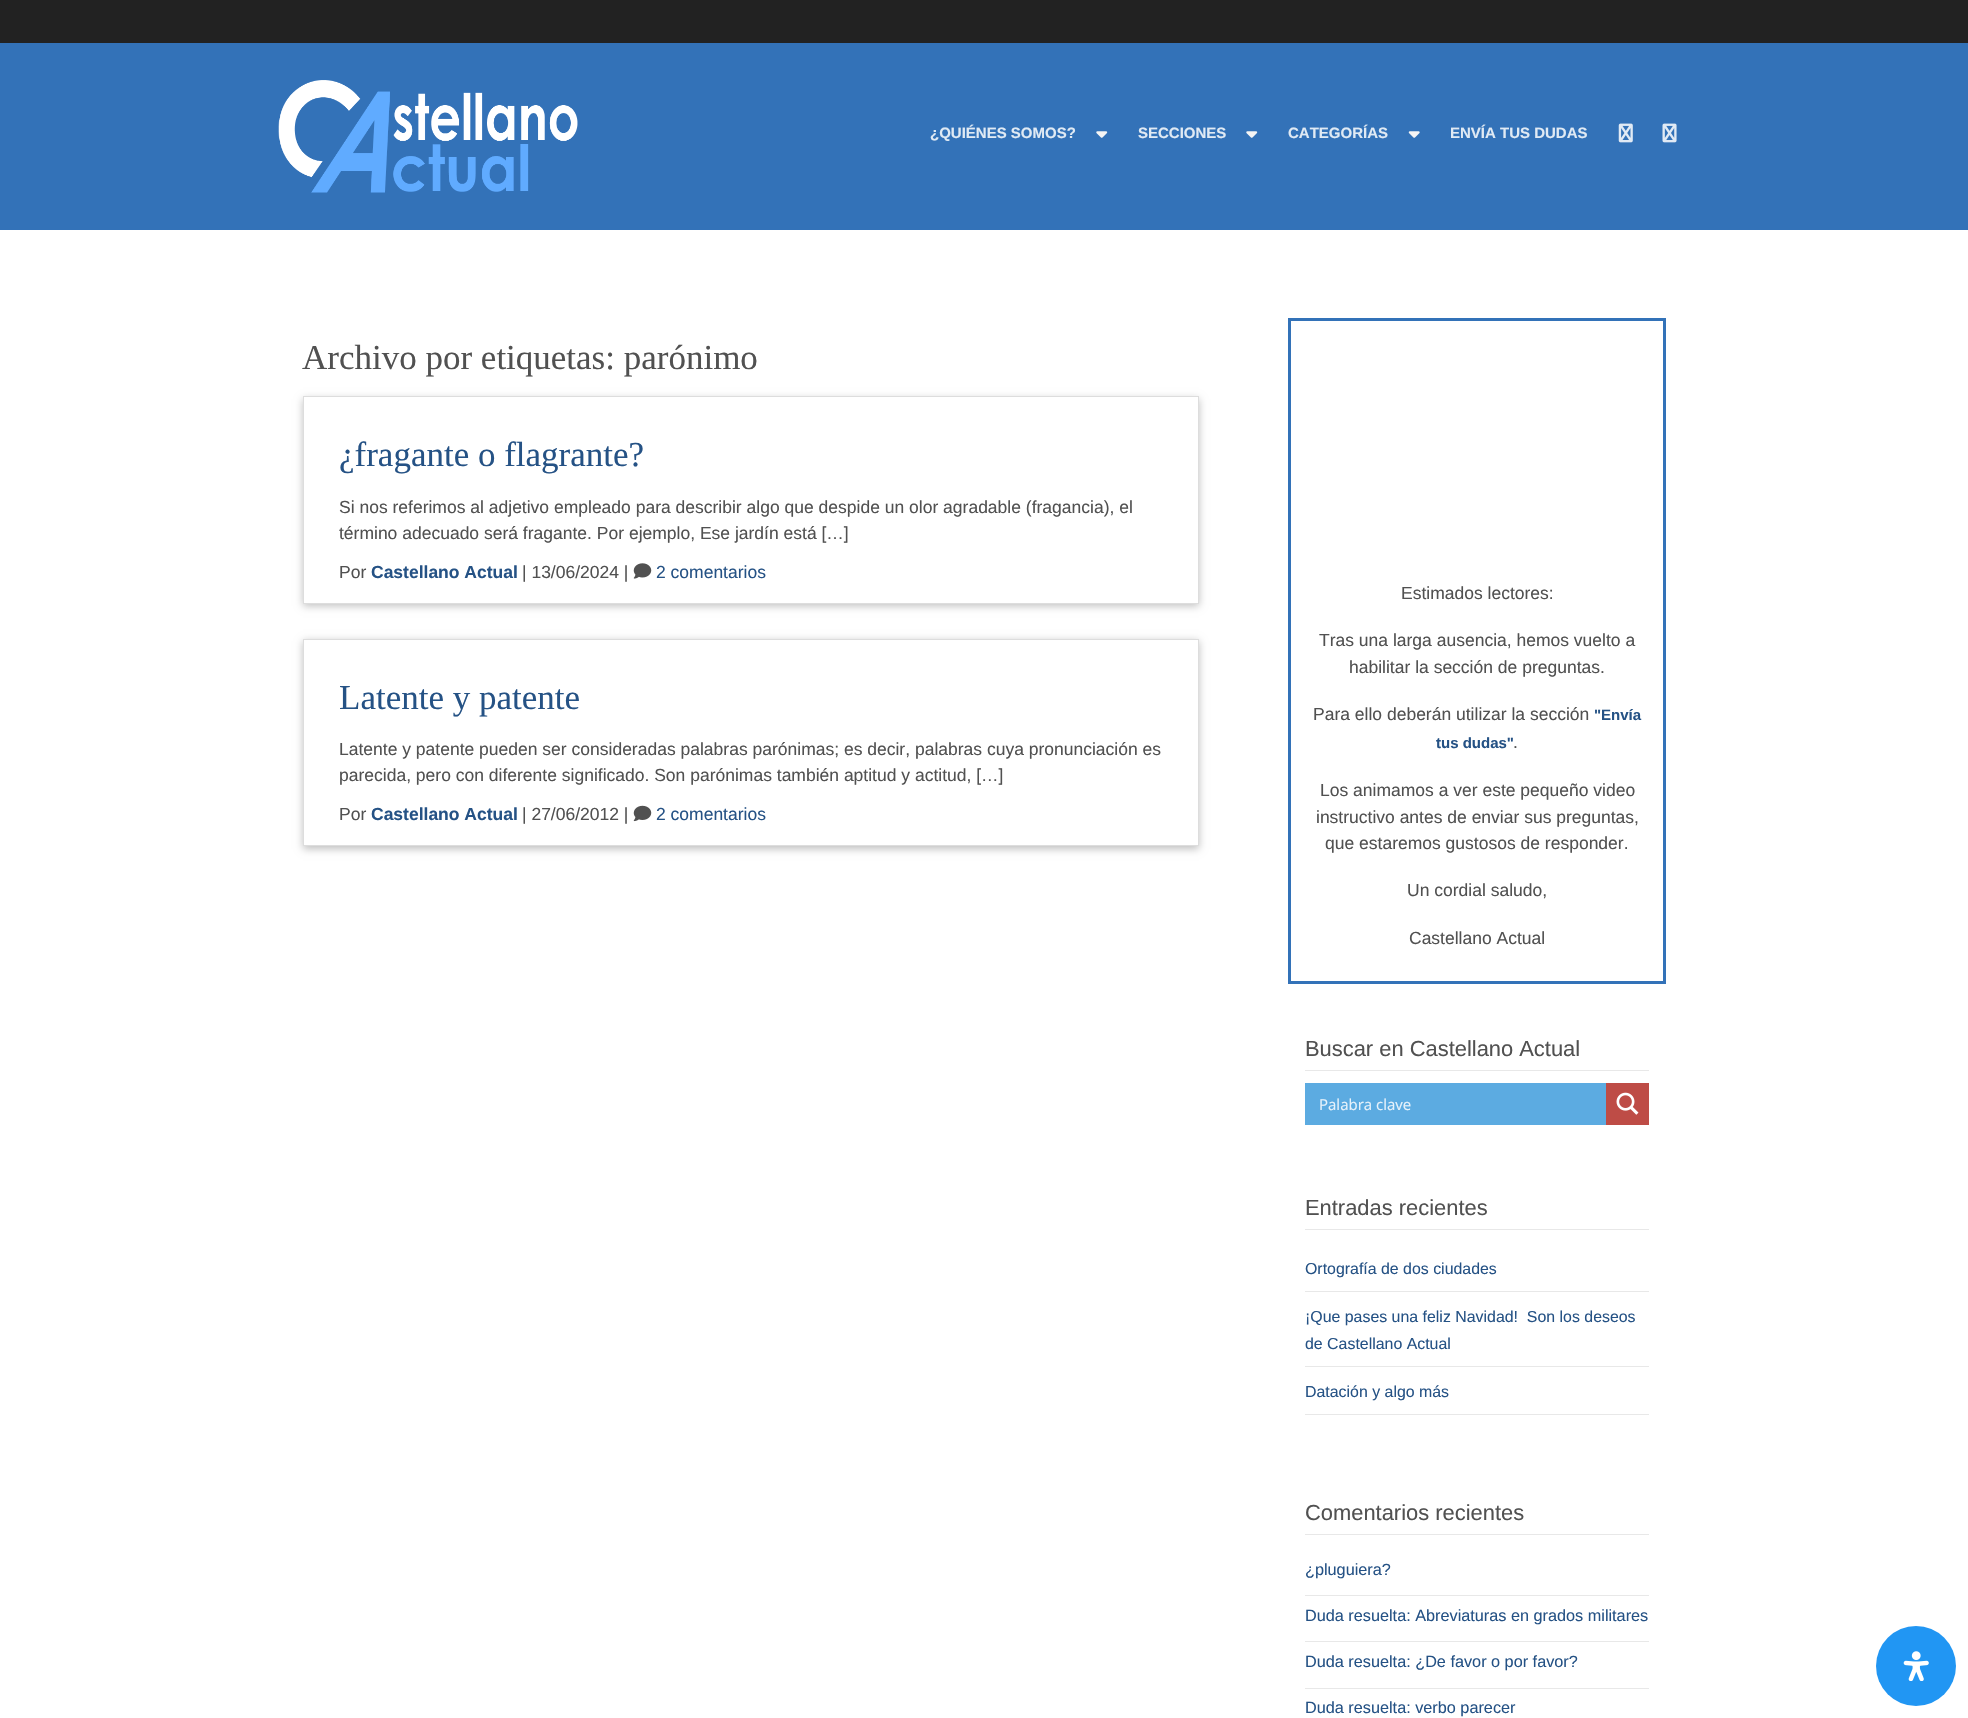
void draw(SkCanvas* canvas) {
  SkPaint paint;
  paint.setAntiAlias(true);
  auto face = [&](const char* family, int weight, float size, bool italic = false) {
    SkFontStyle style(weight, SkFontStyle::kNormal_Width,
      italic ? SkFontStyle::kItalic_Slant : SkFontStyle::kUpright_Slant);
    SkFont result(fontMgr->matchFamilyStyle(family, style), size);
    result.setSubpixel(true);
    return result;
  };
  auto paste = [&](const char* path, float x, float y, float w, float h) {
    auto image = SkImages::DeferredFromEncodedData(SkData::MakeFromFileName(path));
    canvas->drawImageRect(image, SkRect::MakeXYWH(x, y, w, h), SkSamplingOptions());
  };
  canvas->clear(0xffffffff);
  paint.setColor(0xff222222);
  canvas->drawRect(SkRect::MakeXYWH(0, 0, 1968, 43), paint);
  paint.setColor(0xff3372b8);
  canvas->drawRect(SkRect::MakeXYWH(0, 43, 1968, 187), paint);
  paste("img/1.png", 278, 80, 300, 113);
  paste("img/2.png", 1096, 131, 12, 7);
  paste("img/2.png", 1246, 131, 12, 7);
  paste("img/3.png", 1408, 131, 12, 7);
  paste("img/4.png", 1618, 123, 15, 20);
  paste("img/5.png", 1662, 123, 15, 20);
  paint.setColor(0x40000000);
  paint.setMaskFilter(SkMaskFilter::MakeBlur(kNormal_SkBlurStyle, 4));
  canvas->drawRect(SkRect::MakeXYWH(303, 399, 896, 207), paint);
  paint.setMaskFilter(nullptr);
  paint.setColor(0xffffffff);
  canvas->drawRect(SkRect::MakeXYWH(303.5f, 396.5f, 895, 207), paint);
  paint.setStroke(true);
  paint.setStrokeWidth(1);
  paint.setColor(0xffdddddd);
  canvas->drawRect(SkRect::MakeXYWH(303.5f, 396.5f, 895, 207), paint);
  paste("img/6.png", 633, 563, 19, 16);
  paint.setStroke(false);
  paint.setColor(0x40000000);
  paint.setMaskFilter(SkMaskFilter::MakeBlur(kNormal_SkBlurStyle, 4));
  canvas->drawRect(SkRect::MakeXYWH(303, 641, 896, 208), paint);
  paint.setMaskFilter(nullptr);
  paint.setColor(0xffffffff);
  canvas->drawRect(SkRect::MakeXYWH(303.5f, 639.5f, 895, 206), paint);
  paint.setStroke(true);
  paint.setColor(0xffdddddd);
  canvas->drawRect(SkRect::MakeXYWH(303.5f, 639.5f, 895, 206), paint);
  paste("img/7.png", 633, 805, 19, 17);
  paint.setStrokeWidth(3);
  paint.setColor(0xff3372b8);
  canvas->drawRect(SkRect::MakeXYWH(1289.5f, 319.5f, 375, 663), paint);
  paint.setStroke(false);
  {
    const struct { float x, y, w, h; SkColor color; } items[] = {
      {1305, 1070, 344, 1, 0xffe8e8e8},
      {1305, 1083, 301, 42, 0xff5cabe1},
      {1606, 1083, 43, 42, 0xffbe4c46},
    };
    for (auto [x, y, w, h, color] : items) {
      paint.setColor(color);
      canvas->drawRect(SkRect::MakeXYWH(x, y, w, h), paint);
    }
  }
  paste("img/8.png", 1616, 1092, 23, 23);
  {
    const struct { float x, y, w, h; SkColor color; } items[] = {
      {1305, 1229, 344, 1, 0xffe8e8e8},
      {1305, 1291, 344, 1, 0xffe8e8e8},
      {1305, 1366, 344, 1, 0xffe8e8e8},
      {1305, 1414, 344, 1, 0xffe8e8e8},
      {1305, 1534, 344, 1, 0xffe8e8e8},
      {1305, 1595, 344, 1, 0xffe8e8e8},
      {1305, 1641, 344, 1, 0xffe8e8e8},
      {1305, 1688, 344, 1, 0xffe8e8e8},
    };
    for (auto [x, y, w, h, color] : items) {
      paint.setColor(color);
      canvas->drawRect(SkRect::MakeXYWH(x, y, w, h), paint);
    }
  }
  paint.setColor(0xff2196f3);
  canvas->drawCircle(1916, 1666, 40, paint);
  paste("img/9.png", 1903, 1651, 26, 30);
  auto f0 = face("Liberation Sans", 700, 15);
  paint.setColor(0xffe0eaf4);
  {
    const struct { const char* s; float x, y; } items[] = {
      {"¿QUIÉNES SOMOS?", 930, 138},
      {"SECCIONES", 1138, 138},
      {"CATEGORÍAS", 1288, 138},
      {"ENVÍA TUS DUDAS", 1450, 138},
    };
    for (auto [s, x, y] : items) {
      canvas->drawString(s, x, y, f0, paint);
    }
  }
  auto f1 = face("Liberation Serif", 400, 35);
  paint.setColor(0xff515151);
  canvas->drawString("Archivo por etiquetas: parónimo", 302, 369, f1, paint);
  paint.setColor(0xff255285);
  canvas->drawString("¿fragante o flagrante?", 339, 466, f1, paint);
  auto f2 = face("Liberation Sans", 400, 17.5f);
  paint.setColor(0xff515151);
  {
    const struct { const char* s; float x, y; } items[] = {
      {"Si nos referimos al adjetivo empleado para describir algo que despide un olor agradable (fragancia), el", 339, 513},
      {"término adecuado será fragante. Por ejemplo, Ese jardín está […]", 339, 539},
      {"Por", 339, 578},
    };
    for (auto [s, x, y] : items) {
      canvas->drawString(s, x, y, f2, paint);
    }
  }
  auto f3 = face("Liberation Sans", 700, 17.5f);
  paint.setColor(0xff255285);
  canvas->drawString("Castellano Actual", 371, 578, f3, paint);
  paint.setColor(0xff515151);
  canvas->drawString("| 13/06/2024 |", 522, 578, f2, paint);
  paint.setColor(0xff255285);
  canvas->drawString("2 comentarios", 656, 578, f2, paint);
  canvas->drawString("Latente y patente", 339, 709, f1, paint);
  paint.setColor(0xff515151);
  {
    const struct { const char* s; float x, y; } items[] = {
      {"Latente y patente pueden ser consideradas palabras parónimas; es decir, palabras cuya pronunciación es", 339, 755},
      {"parecida, pero con diferente significado. Son parónimas también aptitud y actitud, […]", 339, 781},
      {"Por", 339, 820},
    };
    for (auto [s, x, y] : items) {
      canvas->drawString(s, x, y, f2, paint);
    }
  }
  paint.setColor(0xff255285);
  canvas->drawString("Castellano Actual", 371, 820, f3, paint);
  paint.setColor(0xff515151);
  canvas->drawString("| 27/06/2012 |", 522, 820, f2, paint);
  paint.setColor(0xff255285);
  canvas->drawString("2 comentarios", 656, 820, f2, paint);
  paint.setColor(0xff515151);
  {
    const struct { const char* s; float x, y; } items[] = {
      {"Estimados lectores:", 1401, 599},
      {"Tras una larga ausencia, hemos vuelto a", 1319, 646},
      {"habilitar la sección de preguntas.", 1349, 673},
      {"Para ello deberán utilizar la sección", 1313, 720},
    };
    for (auto [s, x, y] : items) {
      canvas->drawString(s, x, y, f2, paint);
    }
  }
  paint.setColor(0xff255285);
  canvas->drawString("\"Envía", 1594, 720, f0, paint);
  canvas->drawString("tus dudas\"", 1436, 748, f0, paint);
  paint.setColor(0xff515151);
  {
    const struct { const char* s; float x, y; } items[] = {
      {".", 1513, 748},
      {"Los animamos a ver este pequeño video", 1320, 796},
      {"instructivo antes de enviar sus preguntas,", 1316, 823},
      {"que estaremos gustosos de responder.", 1325, 849},
      {"Un cordial saludo,", 1407, 896},
      {"Castellano Actual", 1409, 944},
    };
    for (auto [s, x, y] : items) {
      canvas->drawString(s, x, y, f2, paint);
    }
  }
  auto f4 = face("Liberation Sans", 400, 21.9f);
  canvas->drawString("Buscar en Castellano Actual", 1305, 1056, f4, paint);
  auto f5 = face("Open Sans", 400, 15);
  paint.setColor(0xffe7f2fb);
  canvas->drawString("Palabra clave", 1319, 1110, f5, paint);
  paint.setColor(0xff515151);
  canvas->drawString("Entradas recientes", 1305, 1215, f4, paint);
  auto f6 = face("Liberation Sans", 400, 15.9f);
  paint.setColor(0xff255285);
  {
    const struct { const char* s; float x, y; } items[] = {
      {"Ortografía de dos ciudades", 1305, 1274},
      {"¡Que pases una feliz Navidad!  Son los deseos", 1305, 1322},
      {"de Castellano Actual", 1305, 1349},
      {"Datación y algo más", 1305, 1397},
    };
    for (auto [s, x, y] : items) {
      canvas->drawString(s, x, y, f6, paint);
    }
  }
  paint.setColor(0xff515151);
  canvas->drawString("Comentarios recientes", 1305, 1520, f4, paint);
  auto f7 = face("Liberation Sans", 400, 16.25f);
  paint.setColor(0xff255285);
  {
    const struct { const char* s; float x, y; } items[] = {
      {"¿pluguiera?", 1305, 1575},
      {"Duda resuelta: Abreviaturas en grados militares", 1305, 1621},
      {"Duda resuelta: ¿De favor o por favor?", 1305, 1667},
      {"Duda resuelta: verbo parecer", 1305, 1713},
    };
    for (auto [s, x, y] : items) {
      canvas->drawString(s, x, y, f7, paint);
    }
  }
}
